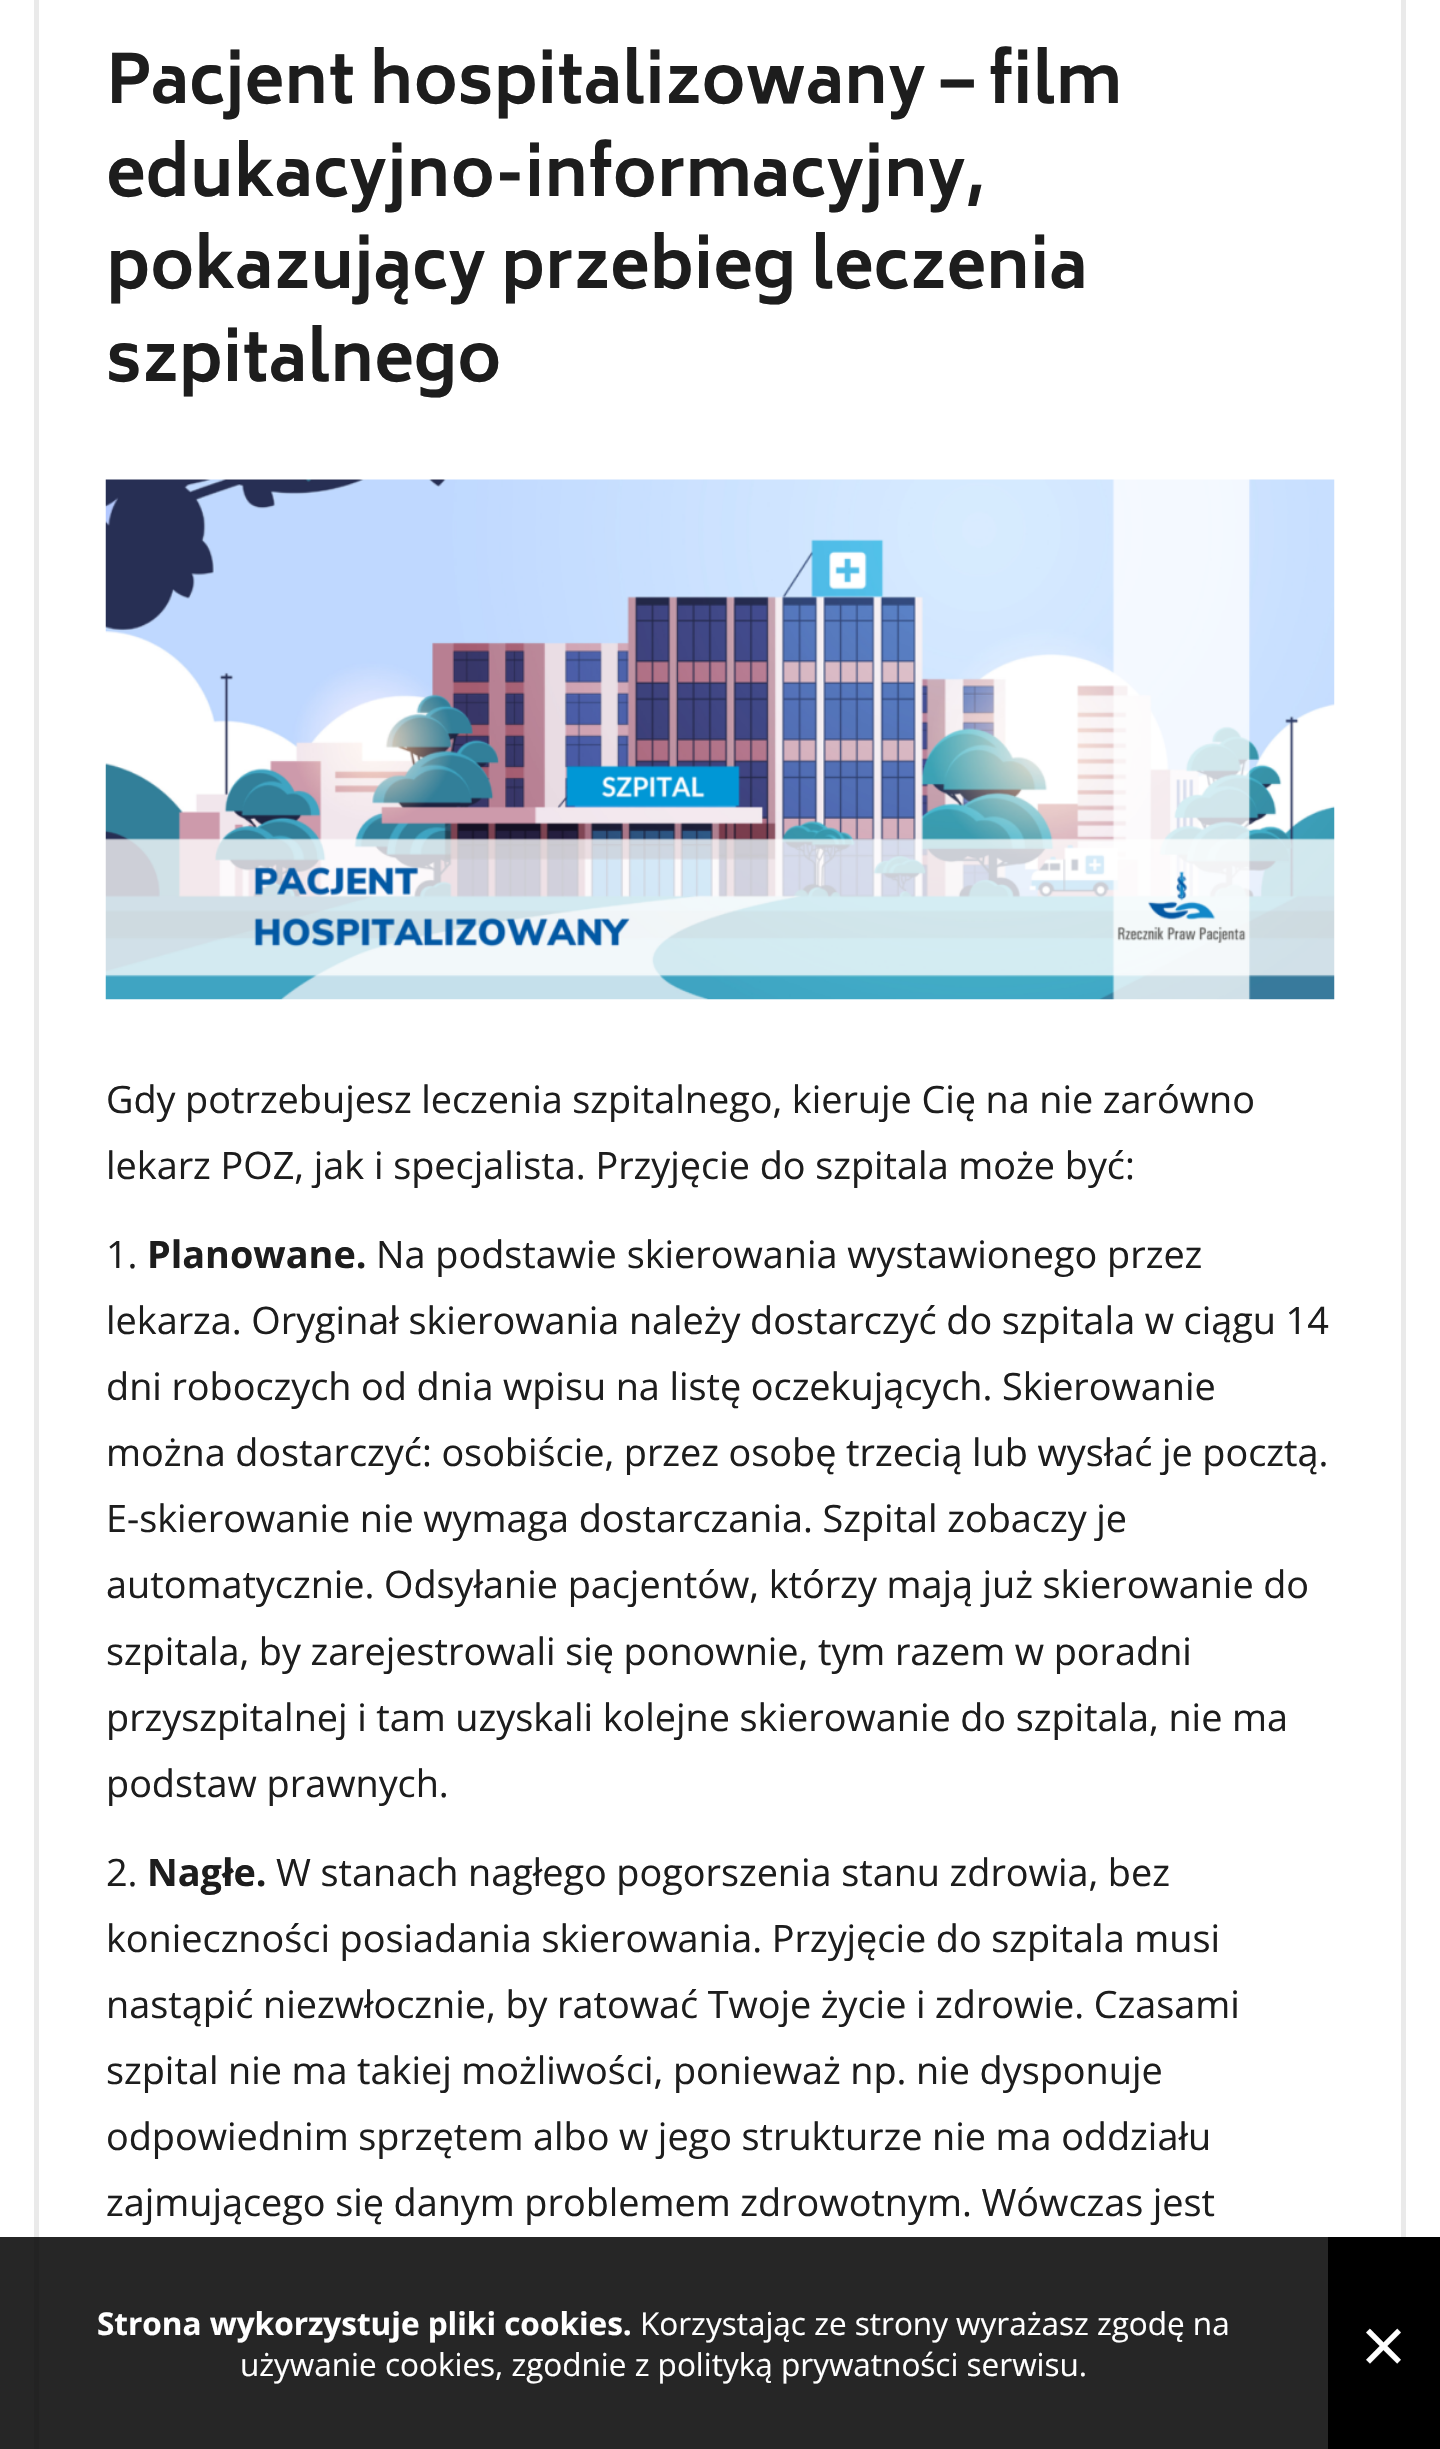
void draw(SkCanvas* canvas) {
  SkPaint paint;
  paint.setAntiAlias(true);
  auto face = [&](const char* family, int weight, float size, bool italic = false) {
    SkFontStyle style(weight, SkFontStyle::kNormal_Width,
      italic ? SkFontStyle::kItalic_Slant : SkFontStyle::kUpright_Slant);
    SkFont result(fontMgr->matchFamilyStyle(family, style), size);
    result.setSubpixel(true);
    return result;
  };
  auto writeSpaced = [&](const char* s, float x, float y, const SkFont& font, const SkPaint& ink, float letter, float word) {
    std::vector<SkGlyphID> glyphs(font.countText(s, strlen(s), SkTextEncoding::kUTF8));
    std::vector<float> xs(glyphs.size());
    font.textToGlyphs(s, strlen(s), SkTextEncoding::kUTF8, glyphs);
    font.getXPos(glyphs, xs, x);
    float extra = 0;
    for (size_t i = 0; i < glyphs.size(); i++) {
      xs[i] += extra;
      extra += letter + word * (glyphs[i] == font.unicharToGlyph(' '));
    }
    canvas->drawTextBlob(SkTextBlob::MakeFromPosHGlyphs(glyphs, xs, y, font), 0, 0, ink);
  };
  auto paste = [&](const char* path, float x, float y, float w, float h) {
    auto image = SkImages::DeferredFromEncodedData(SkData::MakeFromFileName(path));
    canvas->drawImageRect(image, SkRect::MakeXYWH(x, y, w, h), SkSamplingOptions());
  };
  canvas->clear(0xffffffff);
  paint.setStroke(true);
  paint.setStrokeWidth(5);
  paint.setColor(0xffeaeaea);
  canvas->drawRect(SkRect::MakeXYWH(36.5f, -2.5f, 1367, 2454), paint);
  paste("img/1.png", 105, 479, 1230, 521);
  paint.setStroke(false);
  paint.setColor(0xd9000000);
  canvas->drawRect(SkRect::MakeXYWH(0, 2237, 1328, 212), paint);
  paint.setColor(0xff000000);
  canvas->drawRect(SkRect::MakeXYWH(1328, 2237, 112, 212), paint);
  auto f0 = face("Biryani", 700, 66.2f);
  paint.setColor(0xff1d1d1d);
  {
    const struct { const char* s; float x, y; } items[] = {
      {"Pacjent hospitalizowany – film", 106, 103},
      {"edukacyjno-informacyjny,", 106, 196},
      {"pokazujący przebieg leczenia", 106, 288},
      {"szpitalnego", 106, 381},
    };
    for (auto [s, x, y] : items) {
      canvas->drawString(s, x, y, f0, paint);
    }
  }
  auto f1 = face("Open Sans", 400, 37.8f);
  writeSpaced("Gdy potrzebujesz leczenia szpitalnego, kieruje Cię na nie zarówno", 106, 1113, f1, paint, 0, -0.25f);
  writeSpaced("lekarz POZ, jak i specjalista. Przyjęcie do szpitala może być:", 106, 1179, f1, paint, 0, -0.1f);
  canvas->drawString("1.", 106, 1268, f1, paint);
  auto f2 = face("Open Sans", 700, 37.8f);
  canvas->drawString("Planowane.", 147, 1268, f2, paint);
  canvas->drawString("Na podstawie skierowania wystawionego przez", 376, 1268, f1, paint);
  {
    const struct { const char* s; float x, y; } items[] = {
      {"lekarza. Oryginał skierowania należy dostarczyć do szpitala w ciągu 14", 106, 1334},
      {"dni roboczych od dnia wpisu na listę oczekujących. Skierowanie", 106, 1400},
      {"można dostarczyć: osobiście, przez osobę trzecią lub wysłać je pocztą.", 106, 1466},
      {"E-skierowanie nie wymaga dostarczania. Szpital zobaczy je", 106, 1532},
      {"automatycznie. Odsyłanie pacjentów, którzy mają już skierowanie do", 106, 1598},
      {"szpitala, by zarejestrowali się ponownie, tym razem w poradni", 106, 1665},
      {"przyszpitalnej i tam uzyskali kolejne skierowanie do szpitala, nie ma", 106, 1731},
    };
    for (auto [s, x, y] : items) {
      writeSpaced(s, x, y, f1, paint, 0, -0.25f);
    }
  }
  canvas->drawString("podstaw prawnych.", 106, 1797, f1, paint);
  canvas->drawString("2.", 106, 1886, f1, paint);
  canvas->drawString("Nagłe.", 147, 1886, f2, paint);
  {
    const struct { const char* s; float x, y; } items[] = {
      {"W stanach nagłego pogorszenia stanu zdrowia, bez", 276, 1886},
      {"konieczności posiadania skierowania. Przyjęcie do szpitala musi", 106, 1952},
      {"nastąpić niezwłocznie, by ratować Twoje życie i zdrowie. Czasami", 106, 2018},
      {"szpital nie ma takiej możliwości, ponieważ np. nie dysponuje", 106, 2084},
      {"odpowiednim sprzętem albo w jego strukturze nie ma oddziału", 106, 2150},
      {"zajmującego się danym problemem zdrowotnym. Wówczas jest", 106, 2216},
    };
    for (auto [s, x, y] : items) {
      writeSpaced(s, x, y, f1, paint, 0, -0.25f);
    }
  }
  auto f3 = face("Open Sans", 700, 31.5f);
  paint.setColor(0xffffffff);
  canvas->drawString("Strona wykorzystuje pliki cookies.", 97, 2335, f3, paint);
  auto f4 = face("Open Sans", 400, 31.5f);
  canvas->drawString("Korzystając ze strony wyrażasz zgodę na", 640, 2335, f4, paint);
  canvas->drawString("używanie cookies, zgodnie z polityką prywatności serwisu.", 240, 2376, f4, paint);
  auto f5 = face("Open Sans", 400, 79);
  canvas->drawString("×", 1361, 2374, f5, paint);
}
